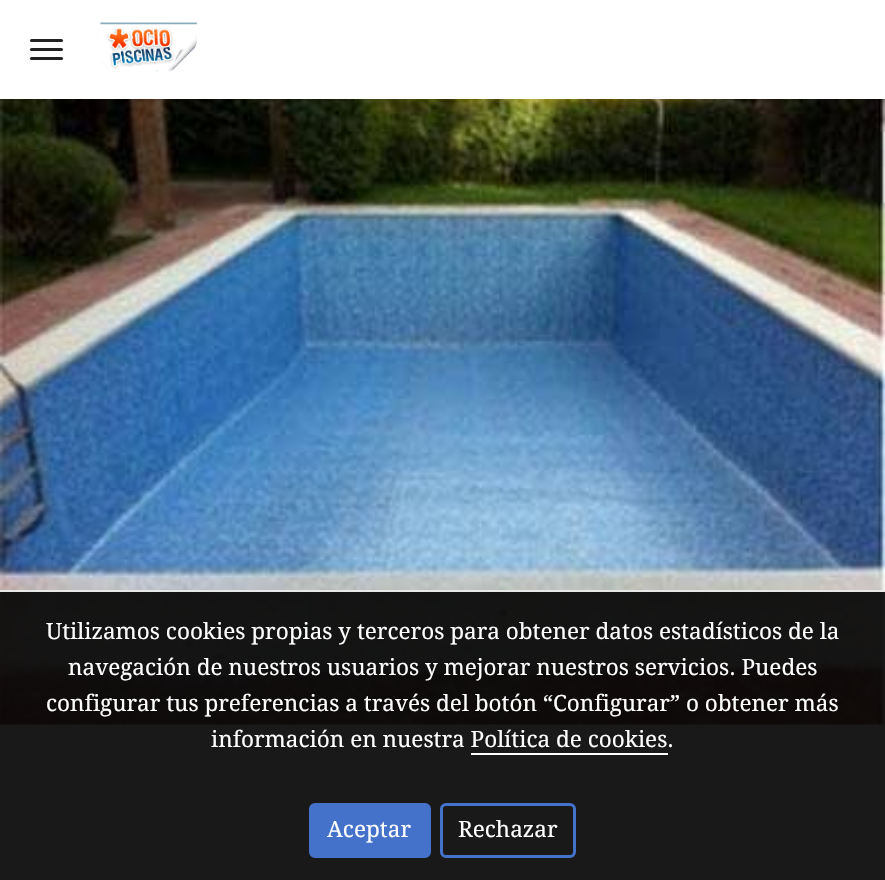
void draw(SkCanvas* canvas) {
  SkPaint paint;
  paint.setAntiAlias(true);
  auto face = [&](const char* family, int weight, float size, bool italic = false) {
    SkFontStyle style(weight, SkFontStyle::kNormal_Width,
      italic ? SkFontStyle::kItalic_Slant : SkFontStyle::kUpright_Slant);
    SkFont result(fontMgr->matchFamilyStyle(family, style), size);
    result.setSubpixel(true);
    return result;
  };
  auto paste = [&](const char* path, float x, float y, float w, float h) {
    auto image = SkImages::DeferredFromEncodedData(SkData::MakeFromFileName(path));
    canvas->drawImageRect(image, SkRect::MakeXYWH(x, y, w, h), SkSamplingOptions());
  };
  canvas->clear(0xffffffff);
  paint.setColor(0xff222222);
  canvas->drawRoundRect(SkRect::MakeXYWH(30, 39, 33, 3), 1.5f, 1.5f, paint);
  canvas->drawRoundRect(SkRect::MakeXYWH(30, 48, 33, 3), 1.5f, 1.5f, paint);
  canvas->drawRoundRect(SkRect::MakeXYWH(30, 57, 33, 3), 1.5f, 1.5f, paint);
  paste("img/1.png", 97, 22, 100, 50);
  paste("img/2.png", 0, 99, 885, 626);
  {
    const struct { float x, y, w, h; SkColor color; } items[] = {
      {0, 592, 885, 288, 0xe6000000},
      {0, 590, 885, 2, 0xffe7e7e7},
      {471, 753, 197, 2, 0xffffffff},
    };
    for (auto [x, y, w, h, color] : items) {
      paint.setColor(color);
      canvas->drawRect(SkRect::MakeXYWH(x, y, w, h), paint);
    }
  }
  paint.setColor(0xff4472ca);
  canvas->drawRoundRect(SkRect::MakeXYWH(310.5f, 804.5f, 119, 52), 4.5f, 4.5f, paint);
  paint.setStroke(true);
  paint.setStrokeWidth(3);
  canvas->drawRoundRect(SkRect::MakeXYWH(310.5f, 804.5f, 119, 52), 4.5f, 4.5f, paint);
  canvas->drawRoundRect(SkRect::MakeXYWH(441.5f, 804.5f, 133, 52), 4.5f, 4.5f, paint);
  auto f0 = face("Droid Serif", 400, 22.5f);
  paint.setStroke(false);
  paint.setColor(0xffffffff);
  {
    const struct { const char* s; float x, y; } items[] = {
      {"Utilizamos cookies propias y terceros para obtener datos estadísticos de la", 46, 639},
      {"navegación de nuestros usuarios y mejorar nuestros servicios. Puedes", 68, 675},
      {"configurar tus preferencias a través del botón “Configurar” o obtener más", 46, 711},
      {"información en nuestra Política de cookies.", 211, 747},
      {"Aceptar", 327, 837},
      {"Rechazar", 458, 837},
    };
    for (auto [s, x, y] : items) {
      canvas->drawString(s, x, y, f0, paint);
    }
  }
}
